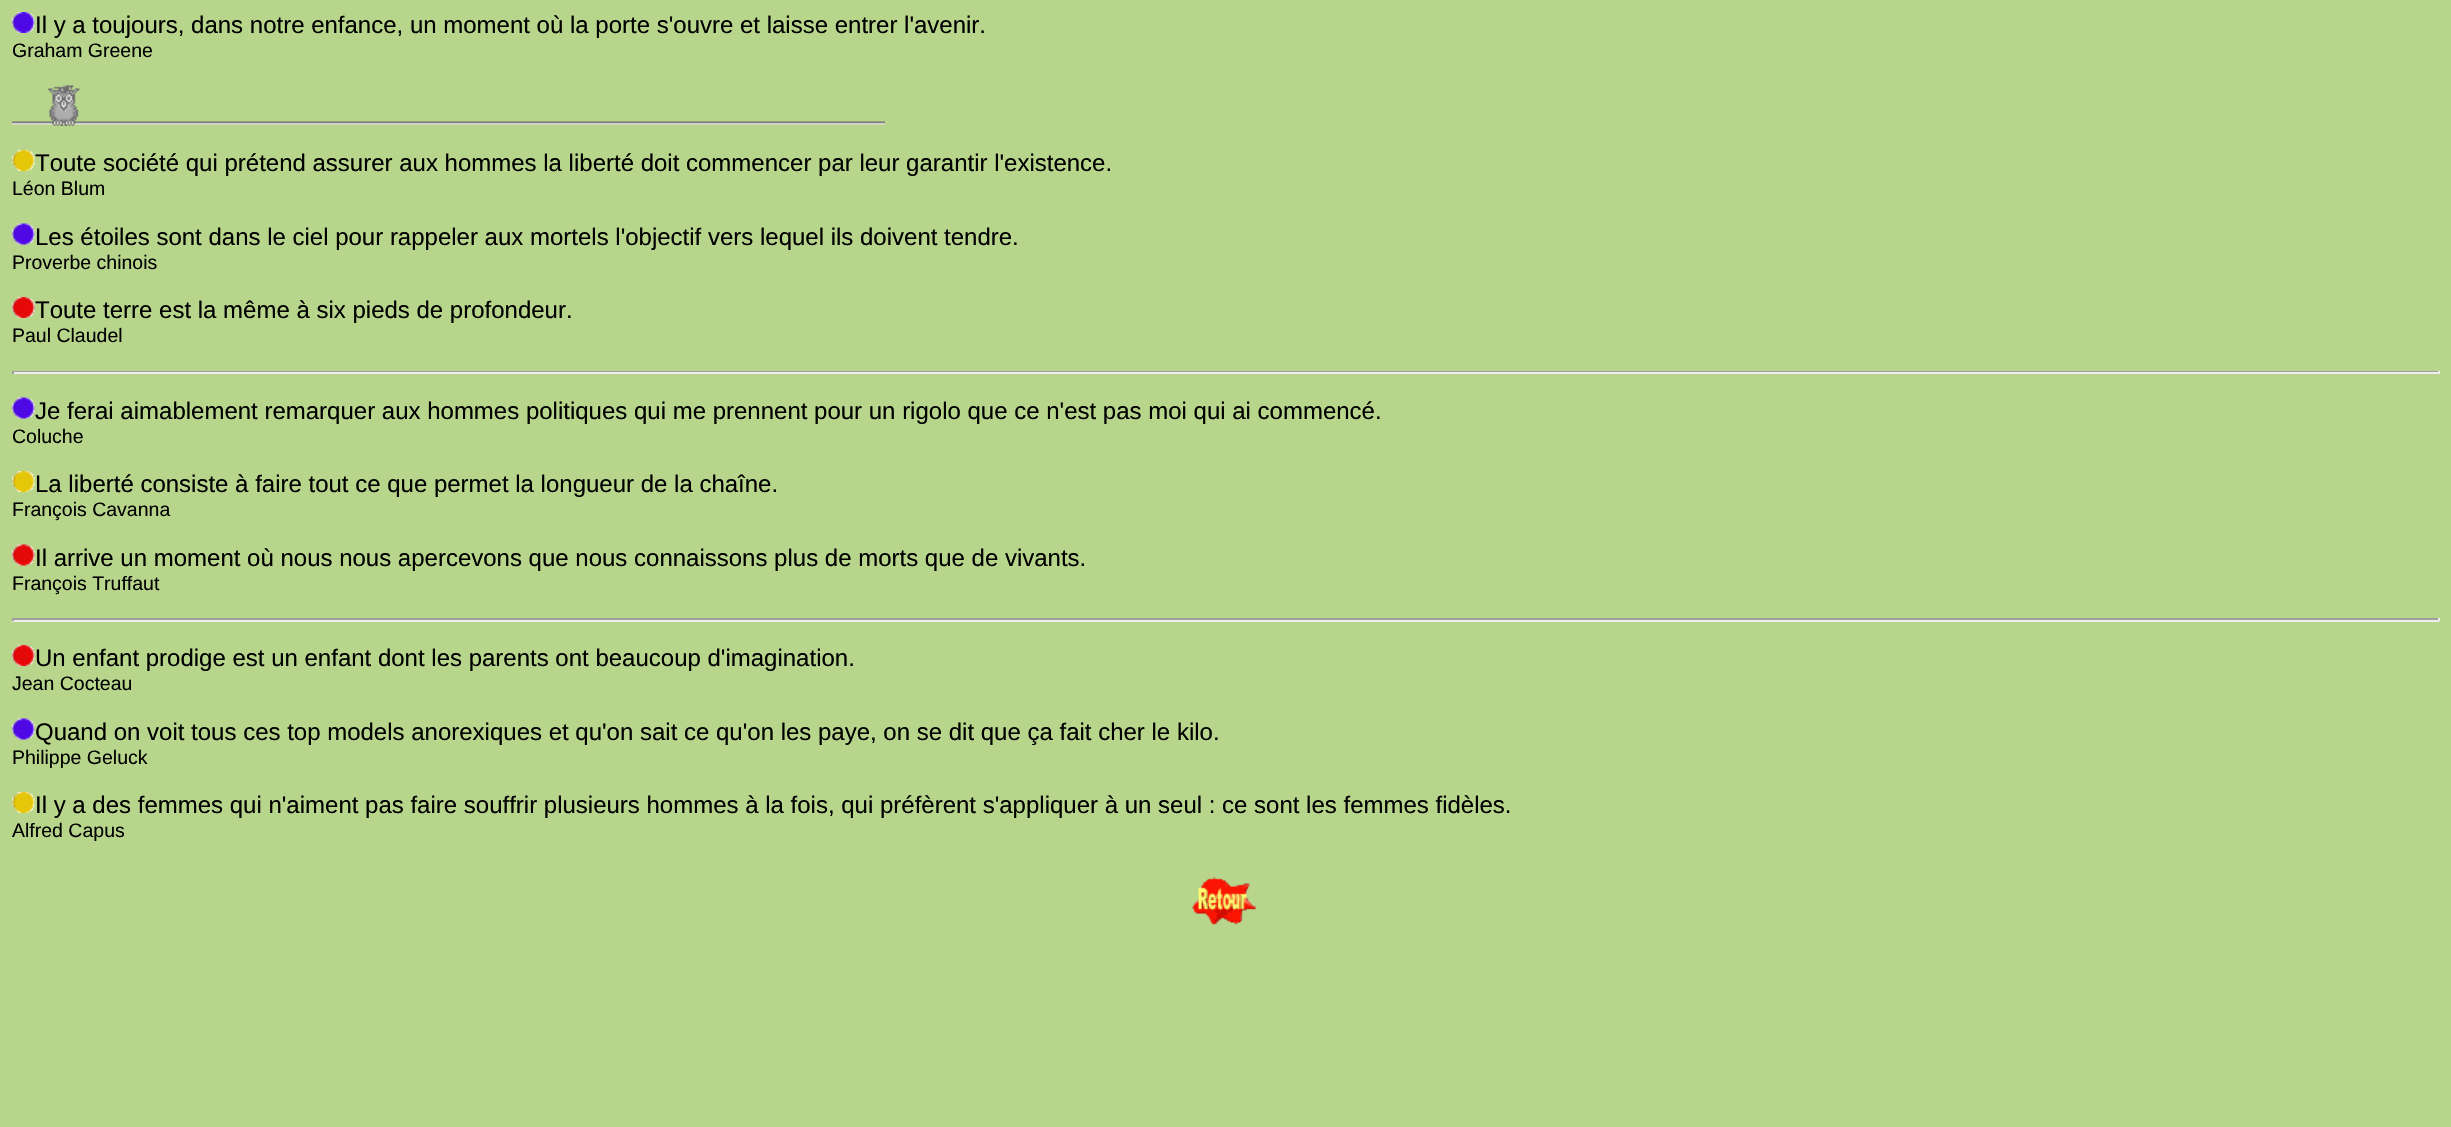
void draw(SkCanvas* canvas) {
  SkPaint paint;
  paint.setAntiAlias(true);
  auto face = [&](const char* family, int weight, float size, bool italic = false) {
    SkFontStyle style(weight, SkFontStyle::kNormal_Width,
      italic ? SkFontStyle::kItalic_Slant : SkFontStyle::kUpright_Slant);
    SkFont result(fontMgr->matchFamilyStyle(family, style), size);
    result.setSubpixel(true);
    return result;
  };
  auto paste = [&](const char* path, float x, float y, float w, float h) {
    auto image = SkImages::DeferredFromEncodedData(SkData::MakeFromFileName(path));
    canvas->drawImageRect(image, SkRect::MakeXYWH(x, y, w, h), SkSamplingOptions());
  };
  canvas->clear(0xffb8d68b);
  paste("img/1.png", 12, 12, 23, 21);
  paste("img/2.png", 12, 85, 873, 41);
  paste("img/3.png", 12, 150, 23, 21);
  paste("img/4.png", 12, 223, 23, 22);
  paste("img/5.png", 12, 297, 23, 21);
  {
    const struct { float x, y, w, h; SkColor color; } items[] = {
      {12, 371, 2427, 1, 0xff9f9f9f},
      {2438, 371, 2, 3, 0xffeeeeee},
      {12, 372, 2427, 2, 0xffeeeeee},
      {12, 371, 2, 3, 0xff9f9f9f},
    };
    for (auto [x, y, w, h, color] : items) {
      paint.setColor(color);
      canvas->drawRect(SkRect::MakeXYWH(x, y, w, h), paint);
    }
  }
  paste("img/4.png", 12, 397, 23, 22);
  paste("img/3.png", 12, 471, 23, 21);
  paste("img/6.png", 12, 544, 23, 22);
  {
    const struct { float x, y, w, h; SkColor color; } items[] = {
      {12, 618, 2427, 2, 0xff9f9f9f},
      {2438, 618, 2, 3, 0xffeeeeee},
      {12, 620, 2427, 2, 0xffeeeeee},
      {12, 618, 2, 3, 0xff9f9f9f},
    };
    for (auto [x, y, w, h, color] : items) {
      paint.setColor(color);
      canvas->drawRect(SkRect::MakeXYWH(x, y, w, h), paint);
    }
  }
  paste("img/5.png", 12, 645, 23, 21);
  paste("img/4.png", 12, 718, 23, 22);
  paste("img/3.png", 12, 792, 23, 21);
  paste("img/7.png", 1192, 877, 64, 48);
  auto f0 = face("Liberation Sans", 400, 24);
  paint.setColor(0xff000000);
  canvas->drawString("Il y a toujours, dans notre enfance, un moment où la porte s'ouvre et laisse entrer l'avenir.", 35, 33, f0, paint);
  auto f1 = face("Liberation Sans", 400, 19.5f);
  canvas->drawString("Graham Greene", 12, 57, f1, paint);
  canvas->drawString("Toute société qui prétend assurer aux hommes la liberté doit commencer par leur garantir l'existence.", 35, 171, f0, paint);
  canvas->drawString("Léon Blum", 12, 195, f1, paint);
  canvas->drawString("Les étoiles sont dans le ciel pour rappeler aux mortels l'objectif vers lequel ils doivent tendre.", 35, 245, f0, paint);
  canvas->drawString("Proverbe chinois", 12, 269, f1, paint);
  canvas->drawString("Toute terre est la même à six pieds de profondeur.", 35, 318, f0, paint);
  canvas->drawString("Paul Claudel", 12, 342, f1, paint);
  canvas->drawString("Je ferai aimablement remarquer aux hommes politiques qui me prennent pour un rigolo que ce n'est pas moi qui ai commencé.", 35, 419, f0, paint);
  canvas->drawString("Coluche", 12, 443, f1, paint);
  canvas->drawString("La liberté consiste à faire tout ce que permet la longueur de la chaîne.", 35, 492, f0, paint);
  canvas->drawString("François Cavanna", 12, 516, f1, paint);
  canvas->drawString("Il arrive un moment où nous nous apercevons que nous connaissons plus de morts que de vivants.", 35, 566, f0, paint);
  canvas->drawString("François Truffaut", 12, 590, f1, paint);
  canvas->drawString("Un enfant prodige est un enfant dont les parents ont beaucoup d'imagination.", 35, 666, f0, paint);
  canvas->drawString("Jean Cocteau", 12, 690, f1, paint);
  canvas->drawString("Quand on voit tous ces top models anorexiques et qu'on sait ce qu'on les paye, on se dit que ça fait cher le kilo.", 35, 740, f0, paint);
  canvas->drawString("Philippe Geluck", 12, 764, f1, paint);
  canvas->drawString("Il y a des femmes qui n'aiment pas faire souffrir plusieurs hommes à la fois, qui préfèrent s'appliquer à un seul : ce sont les femmes fidèles.", 35, 813, f0, paint);
  canvas->drawString("Alfred Capus", 12, 837, f1, paint);
}
